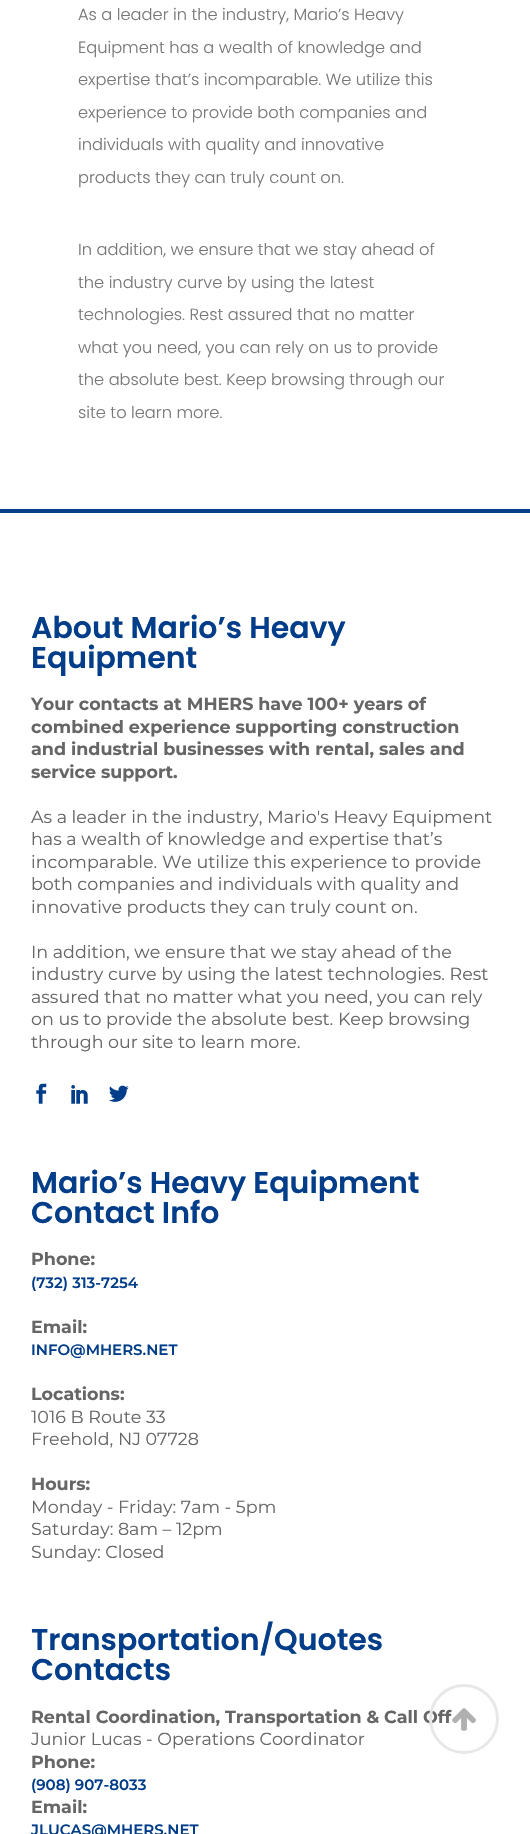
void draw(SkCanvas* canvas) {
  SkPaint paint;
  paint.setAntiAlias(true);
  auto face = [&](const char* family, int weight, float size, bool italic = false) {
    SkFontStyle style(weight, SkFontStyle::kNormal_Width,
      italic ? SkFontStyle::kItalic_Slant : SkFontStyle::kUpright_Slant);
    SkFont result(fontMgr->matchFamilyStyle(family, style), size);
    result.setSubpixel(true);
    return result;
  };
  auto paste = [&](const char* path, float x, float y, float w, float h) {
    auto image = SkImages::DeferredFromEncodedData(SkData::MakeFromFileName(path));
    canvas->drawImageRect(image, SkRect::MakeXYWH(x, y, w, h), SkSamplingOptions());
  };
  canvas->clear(0xffffffff);
  paint.setColor(0xff023d89);
  canvas->drawRect(SkRect::MakeXYWH(0, 509, 530, 4), paint);
  paste("img/1.png", 36, 1083, 11, 21);
  paste("img/2.png", 71, 1085, 17, 19);
  paste("img/3.png", 109, 1085, 20, 17);
  auto f0 = face("Poppins", 300, 16.25f);
  paint.setColor(0xff777777);
  {
    const struct { const char* s; float x, y; } items[] = {
      {"As a leader in the industry, Mario’s Heavy", 78, 20},
      {"Equipment has a wealth of knowledge and", 78, 53},
      {"expertise that’s incomparable. We utilize this", 78, 85},
      {"experience to provide both companies and", 78, 118},
      {"individuals with quality and innovative", 78, 150},
      {"products they can truly count on.", 78, 183},
      {"In addition, we ensure that we stay ahead of", 78, 255},
      {"the industry curve by using the latest", 78, 288},
      {"technologies. Rest assured that no matter", 78, 320},
      {"what you need, you can rely on us to provide", 78, 353},
      {"the absolute best. Keep browsing through our", 78, 385},
      {"site to learn more.", 78, 418},
    };
    for (auto [s, x, y] : items) {
      canvas->drawString(s, x, y, f0, paint);
    }
  }
  auto f1 = face("Poppins", 600, 30);
  paint.setColor(0xff023d89);
  canvas->drawString("About Mario’s Heavy", 31, 638, f1, paint);
  canvas->drawString("Equipment", 31, 668, f1, paint);
  auto f2 = face("Montserrat", 700, 17.5f);
  paint.setColor(0xff666666);
  {
    const struct { const char* s; float x, y; } items[] = {
      {"Your contacts at MHERS have 100+ years of", 31, 710},
      {"combined experience supporting construction", 31, 733},
      {"and industrial businesses with rental, sales and", 31, 755},
      {"service support.", 31, 778},
    };
    for (auto [s, x, y] : items) {
      canvas->drawString(s, x, y, f2, paint);
    }
  }
  auto f3 = face("Montserrat", 400, 17.5f);
  {
    const struct { const char* s; float x, y; } items[] = {
      {"As a leader in the industry, Mario's Heavy Equipment", 31, 823},
      {"has a wealth of knowledge and expertise that’s", 31, 845},
      {"incomparable. We utilize this experience to provide", 31, 868},
      {"both companies and individuals with quality and", 31, 890},
      {"innovative products they can truly count on.", 31, 913},
      {"In addition, we ensure that we stay ahead of the", 31, 958},
      {"industry curve by using the latest technologies. Rest", 31, 980},
      {"assured that no matter what you need, you can rely", 31, 1003},
      {"on us to provide the absolute best. Keep browsing", 31, 1025},
      {"through our site to learn more.", 31, 1048},
    };
    for (auto [s, x, y] : items) {
      canvas->drawString(s, x, y, f3, paint);
    }
  }
  paint.setColor(0xff023d89);
  canvas->drawString("Mario’s Heavy Equipment", 31, 1193, f1, paint);
  canvas->drawString("Contact Info", 31, 1223, f1, paint);
  paint.setColor(0xff666666);
  canvas->drawString("Phone:", 31, 1265, f2, paint);
  auto f4 = face("Montserrat", 600, 15);
  paint.setColor(0xff023d89);
  canvas->drawString("(732) 313-7254", 31, 1288, f4, paint);
  paint.setColor(0xff666666);
  canvas->drawString("Email:", 31, 1333, f2, paint);
  paint.setColor(0xff023d89);
  canvas->drawString("INFO@MHERS.NET", 31, 1355, f4, paint);
  paint.setColor(0xff666666);
  canvas->drawString("Locations:", 31, 1400, f2, paint);
  canvas->drawString("1016 B Route 33", 31, 1423, f3, paint);
  canvas->drawString("Freehold, NJ 07728", 31, 1445, f3, paint);
  canvas->drawString("Hours:", 31, 1490, f2, paint);
  {
    const struct { const char* s; float x, y; } items[] = {
      {"Monday - Friday: 7am - 5pm", 31, 1513},
      {"Saturday: 8am – 12pm", 31, 1535},
      {"Sunday: Closed", 31, 1558},
    };
    for (auto [s, x, y] : items) {
      canvas->drawString(s, x, y, f3, paint);
    }
  }
  paint.setColor(0xff023d89);
  canvas->drawString("Transportation/Quotes", 31, 1650, f1, paint);
  canvas->drawString("Contacts", 31, 1680, f1, paint);
  paint.setColor(0xff666666);
  canvas->drawString("Rental Coordination, Transportation & Call Off", 31, 1723, f2, paint);
  canvas->drawString("Junior Lucas - Operations Coordinator", 31, 1745, f3, paint);
  canvas->drawString("Phone:", 31, 1768, f2, paint);
  paint.setColor(0xff023d89);
  canvas->drawString("(908) 907-8033", 31, 1790, f4, paint);
  paint.setColor(0xff666666);
  canvas->drawString("Email:", 31, 1813, f2, paint);
  paint.setColor(0xff023d89);
  canvas->drawString("JLUCAS@MHERS.NET", 31, 1835, f4, paint);
  paint.setStroke(true);
  paint.setStrokeWidth(3);
  paint.setColor(0xffe8e8e8);
  canvas->drawCircle(464, 1719, 33.5f, paint);
  paste("img/4.png", 452, 1708, 24, 23);
}
